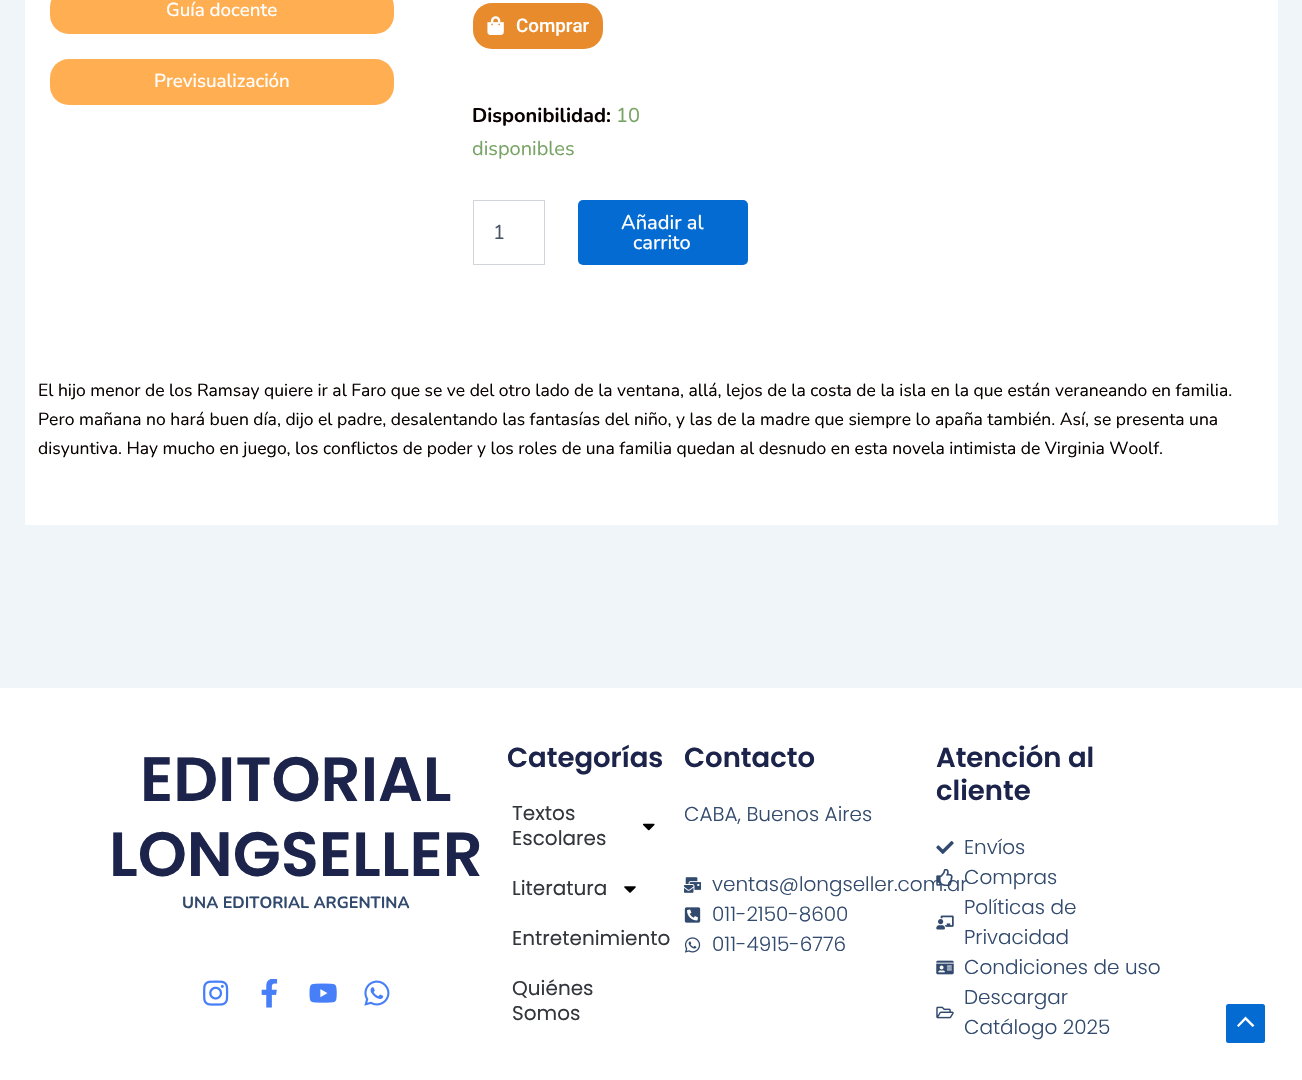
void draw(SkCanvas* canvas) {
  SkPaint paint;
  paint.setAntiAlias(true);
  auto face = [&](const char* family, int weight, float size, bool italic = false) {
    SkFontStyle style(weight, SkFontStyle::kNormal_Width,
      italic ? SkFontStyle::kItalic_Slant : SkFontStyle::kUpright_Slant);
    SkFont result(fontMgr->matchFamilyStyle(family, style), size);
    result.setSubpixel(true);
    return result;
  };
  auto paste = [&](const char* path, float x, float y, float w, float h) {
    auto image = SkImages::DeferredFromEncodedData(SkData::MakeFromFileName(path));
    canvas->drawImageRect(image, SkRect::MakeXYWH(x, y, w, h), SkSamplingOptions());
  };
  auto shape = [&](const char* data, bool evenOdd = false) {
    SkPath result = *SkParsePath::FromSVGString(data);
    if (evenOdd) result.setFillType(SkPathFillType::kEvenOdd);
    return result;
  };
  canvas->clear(0xfff0f5fa);
  paint.setColor(0xffffffff);
  canvas->drawRect(SkRect::MakeXYWH(25, 0, 1253, 525), paint);
  paint.setColor(0xffffae51);
  canvas->drawRoundRect(SkRect::MakeXYWH(50, -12, 344, 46), 19, 19, paint);
  canvas->drawRoundRect(SkRect::MakeXYWH(50, 59, 344, 46), 19, 19, paint);
  paint.setColor(0xffe78b2c);
  canvas->drawRoundRect(SkRect::MakeXYWH(473, 3, 130, 46), 19, 19, paint);
  paste("img/1.png", 487, 16, 17, 19);
  paint.setStroke(true);
  paint.setStrokeWidth(1);
  paint.setColor(0xffd1d5db);
  canvas->drawRect(SkRect::MakeXYWH(473.5f, 200.5f, 71, 64), paint);
  paint.setStroke(false);
  paint.setColor(0xff046bd2);
  canvas->drawRoundRect(SkRect::MakeXYWH(578, 200, 170, 65), 5, 5, paint);
  paint.setColor(0xffffffff);
  canvas->drawRect(SkRect::MakeXYWH(0, 688, 1302, 392), paint);
  paste("img/2.png", 203, 980, 26, 26);
  paste("img/3.png", 261, 979, 17, 29);
  paste("img/4.png", 309, 983, 28, 20);
  paste("img/5.png", 364, 980, 26, 26);
  paste("img/6.png", 643, 823, 12, 8);
  paste("img/7.png", 624, 886, 12, 7);
  paste("img/8.png", 684, 877, 17, 16);
  paste("img/9.png", 684, 907, 17, 16);
  paste("img/10.png", 684, 937, 17, 16);
  paste("img/11.png", 936, 841, 18, 13);
  paste("img/13.png", 936, 915, 18, 15);
  paste("img/14.png", 936, 960, 18, 15);
  paste("img/15.png", 936, 1006, 18, 13);
  paint.setColor(0xff046bd2);
  canvas->drawRoundRect(SkRect::MakeXYWH(1226, 1004, 39, 39), 2.5f, 2.5f, paint);
  paint.setColor(0xffffffff);
  canvas->drawPath(shape("M1254.5 1025.5L1245.5 1016.5L1237 1025.5L1238.5 1027L1245.5 1020L1252.5 1027Z"), paint);
  auto f0 = face("Nunito Sans", 500, 18.75f);
  canvas->drawString("Guía docente", 166, 16, f0, paint);
  canvas->drawString("Previsualización", 154, 87, f0, paint);
  auto f1 = face("Roboto", 500, 18.75f);
  canvas->drawString("Comprar", 516, 32, f1, paint);
  auto f2 = face("Nunito", 700, 20);
  paint.setColor(0xff0a0101);
  canvas->drawString("Disponibilidad:", 472, 122, f2, paint);
  auto f3 = face("Nunito", 400, 20);
  paint.setColor(0xff77a464);
  canvas->drawString("10", 616, 122, f3, paint);
  canvas->drawString("disponibles", 472, 155, f3, paint);
  paint.setColor(0xff475569);
  canvas->drawString("1", 493, 239, f3, paint);
  auto f4 = face("Nunito", 500, 20);
  paint.setColor(0xffffffff);
  canvas->drawString("Añadir al", 621, 229, f4, paint);
  canvas->drawString("carrito", 633, 249, f4, paint);
  auto f5 = face("Nunito", 400, 17.5f);
  paint.setColor(0xff0a0101);
  {
    const struct { const char* s; float x, y; } items[] = {
      {"El hijo menor de los Ramsay quiere ir al Faro que se ve del otro lado de la ventana, allá, lejos de la costa de la isla en la que están veraneando en familia.", 38, 396},
      {"Pero mañana no hará buen día, dijo el padre, desalentando las fantasías del niño, y las de la madre que siempre lo apaña también. Así, se presenta una", 38, 425},
      {"disyuntiva. Hay mucho en juego, los conflictos de poder y los roles de una familia quedan al desnudo en esta novela intimista de Virginia Woolf.", 38, 454},
    };
    for (auto [s, x, y] : items) {
      canvas->drawString(s, x, y, f5, paint);
    }
  }
  auto f6 = face("Poppins", 600, 62.5f);
  paint.setColor(0xff1c244b);
  canvas->drawString("EDITORIAL", 140, 801, f6, paint);
  canvas->drawString("LONGSELLER", 109, 876, f6, paint);
  auto f7 = face("Nunito", 700, 16.25f);
  paint.setColor(0xff324a6d);
  canvas->drawString("UNA EDITORIAL ARGENTINA", 182, 908, f7, paint);
  auto f8 = face("Poppins", 600, 27.5f);
  paint.setColor(0xff1c244b);
  canvas->drawString("Categorías", 507, 767, f8, paint);
  auto f9 = face("Poppins", 400, 20);
  paint.setColor(0xff33373d);
  {
    const struct { const char* s; float x, y; } items[] = {
      {"Textos", 512, 820},
      {"Escolares", 512, 845},
      {"Literatura", 512, 895},
      {"Entretenimiento", 512, 945},
      {"Quiénes", 512, 995},
      {"Somos", 512, 1020},
    };
    for (auto [s, x, y] : items) {
      canvas->drawString(s, x, y, f9, paint);
    }
  }
  paint.setColor(0xff1c244b);
  canvas->drawString("Contacto", 684, 767, f8, paint);
  auto f10 = face("Poppins", 300, 20);
  paint.setColor(0xff324a6d);
  {
    const struct { const char* s; float x, y; } items[] = {
      {"CABA, Buenos Aires", 684, 821},
      {"ventas@longseller.com.ar", 712, 891},
      {"011-2150-8600", 712, 921},
      {"011-4915-6776", 712, 951},
    };
    for (auto [s, x, y] : items) {
      canvas->drawString(s, x, y, f10, paint);
    }
  }
  paint.setColor(0xff1c244b);
  canvas->drawString("Atención al", 936, 767, f8, paint);
  canvas->drawString("cliente", 936, 800, f8, paint);
  paint.setColor(0xff324a6d);
  canvas->drawString("Envíos", 964, 854, f10, paint);
  paste("img/12.png", 936, 869, 17, 17);
  {
    const struct { const char* s; float x, y; } items[] = {
      {"Compras", 964, 884},
      {"Políticas de", 964, 914},
      {"Privacidad", 964, 944},
      {"Condiciones de uso", 964, 974},
      {"Descargar", 964, 1004},
      {"Catálogo 2025", 964, 1034},
    };
    for (auto [s, x, y] : items) {
      canvas->drawString(s, x, y, f10, paint);
    }
  }
}
